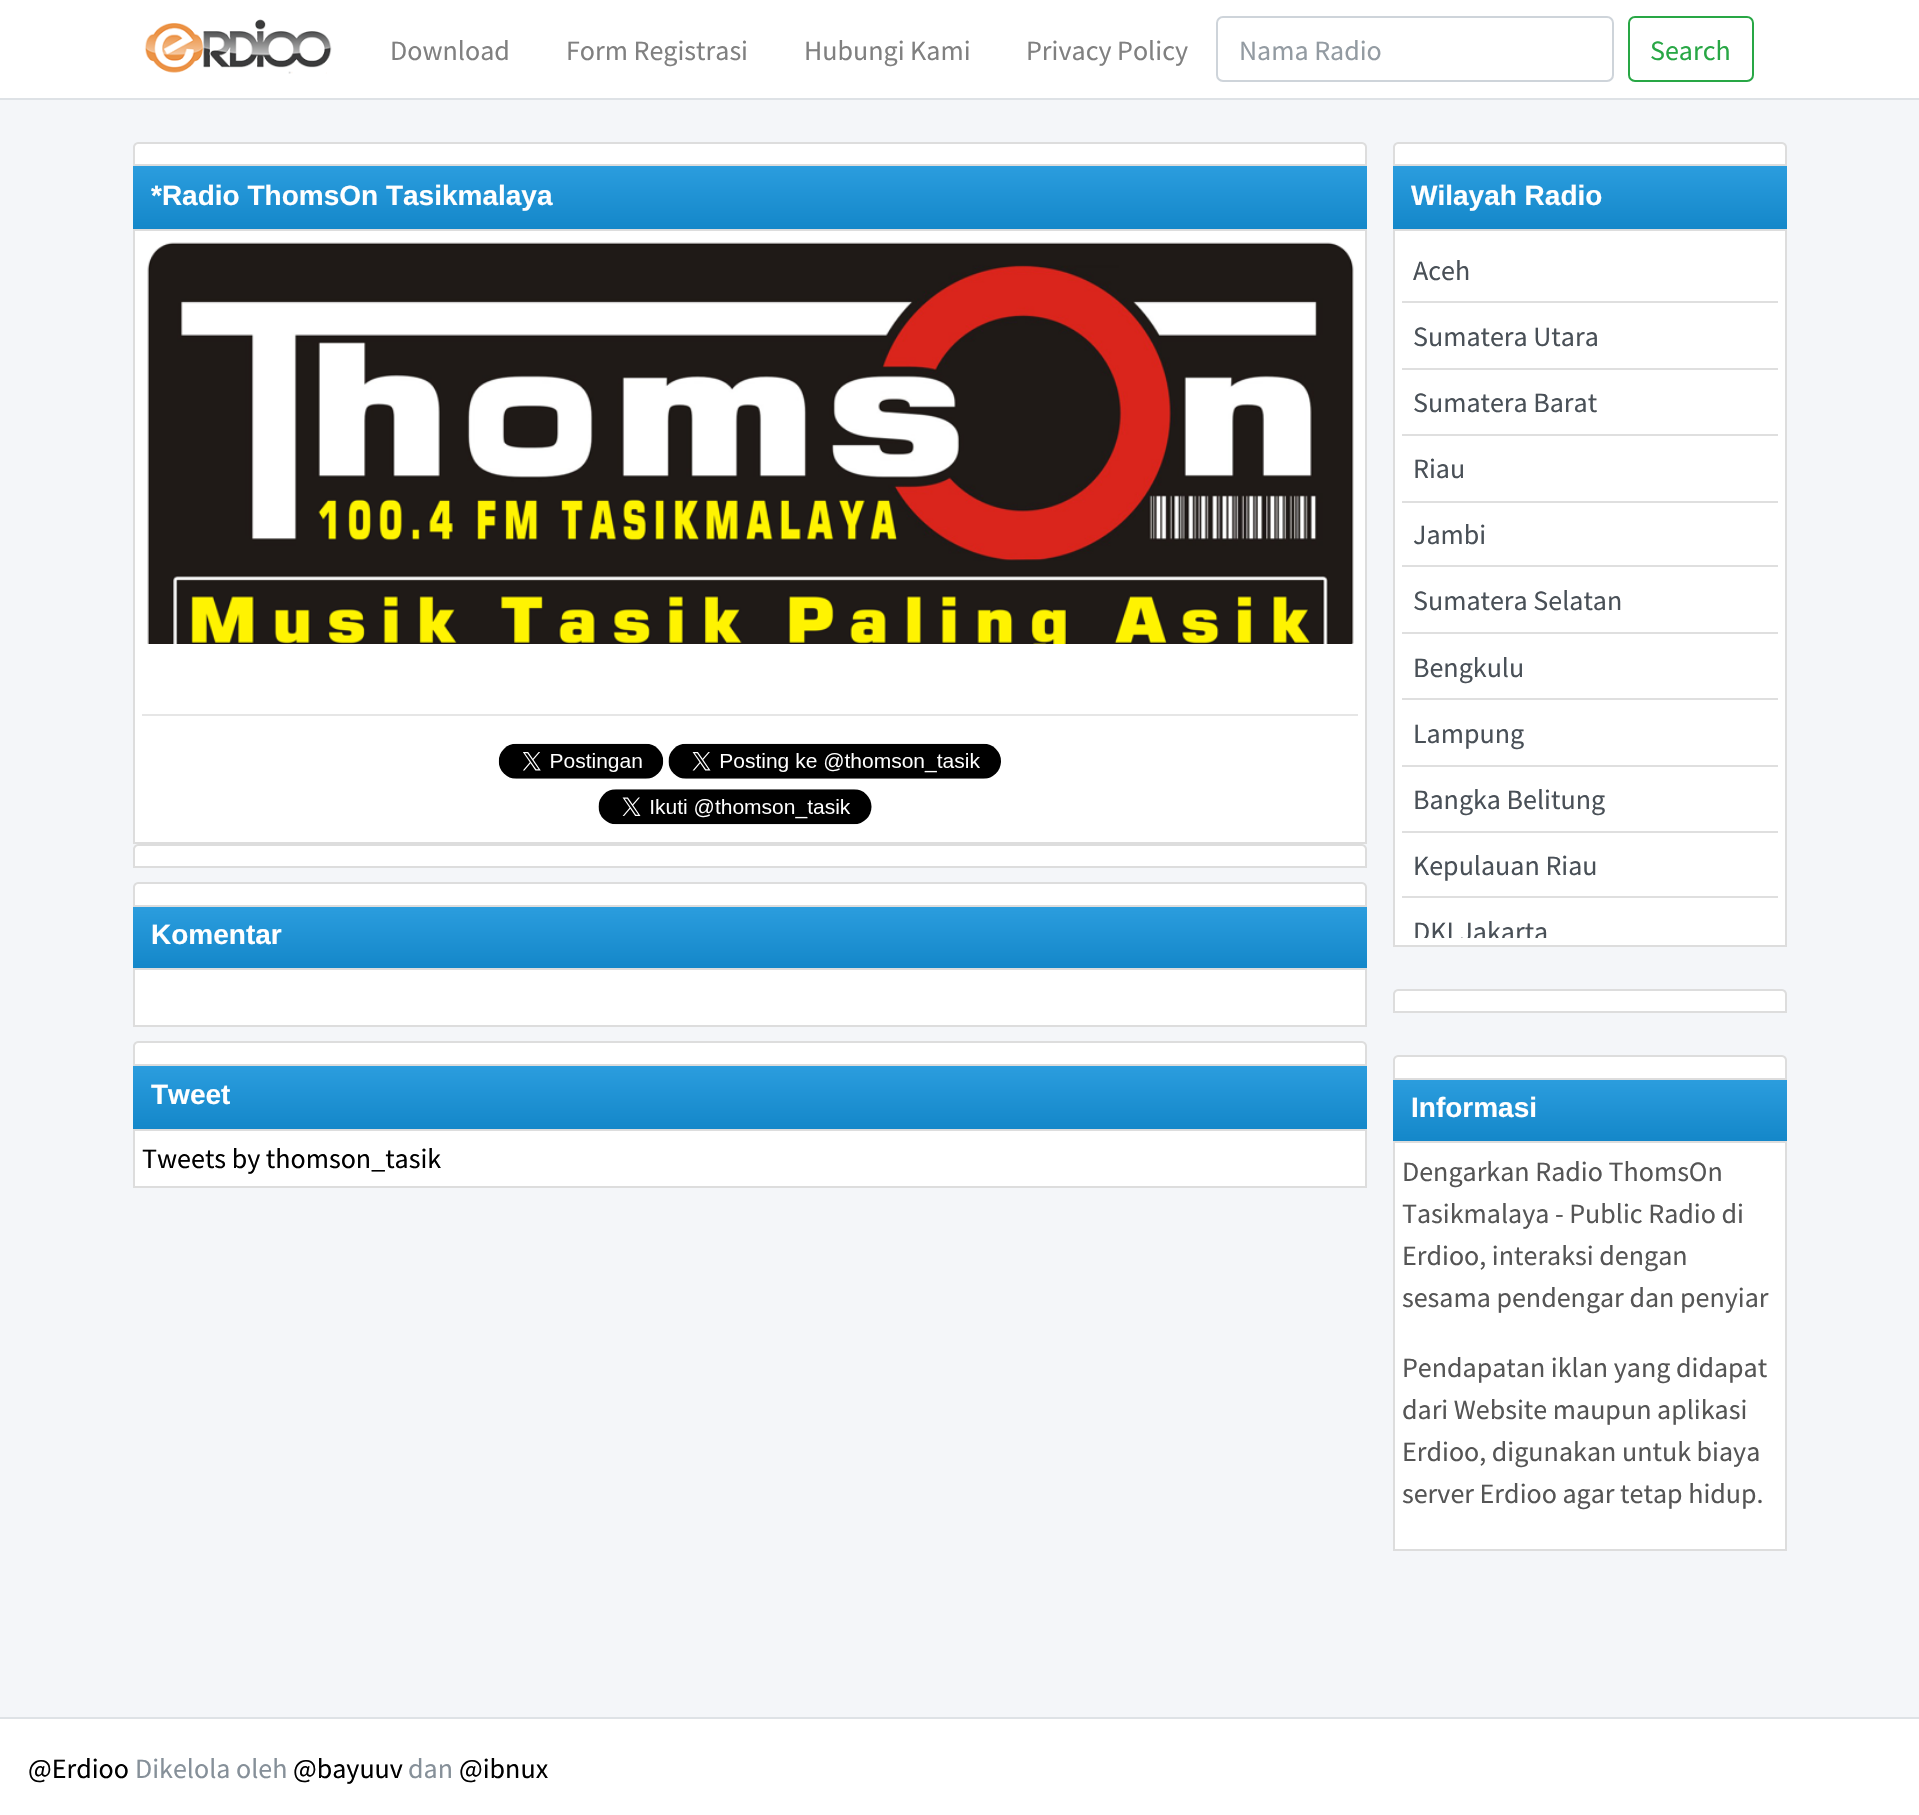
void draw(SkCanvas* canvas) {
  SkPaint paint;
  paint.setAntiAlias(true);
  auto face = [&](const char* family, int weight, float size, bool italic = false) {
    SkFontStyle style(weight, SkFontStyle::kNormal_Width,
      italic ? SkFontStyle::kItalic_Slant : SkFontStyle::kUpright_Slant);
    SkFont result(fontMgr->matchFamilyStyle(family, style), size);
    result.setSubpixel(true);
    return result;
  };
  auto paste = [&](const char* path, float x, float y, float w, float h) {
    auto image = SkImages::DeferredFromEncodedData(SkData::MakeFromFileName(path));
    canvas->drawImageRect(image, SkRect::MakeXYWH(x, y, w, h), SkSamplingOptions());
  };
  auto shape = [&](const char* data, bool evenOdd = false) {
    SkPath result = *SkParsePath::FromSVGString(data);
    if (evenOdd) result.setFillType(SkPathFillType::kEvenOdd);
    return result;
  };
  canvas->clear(0xffffffff);
  paint.setColor(0xffdee2e6);
  canvas->drawRect(SkRect::MakeXYWH(0, 98, 1919, 2), paint);
  paste("img/1.png", 144, 19, 188, 55);
  paint.setStroke(true);
  paint.setStrokeWidth(2);
  paint.setColor(0xffced4da);
  canvas->drawRoundRect(SkRect::MakeXYWH(1217, 17, 396, 64), 6, 6, paint);
  paint.setColor(0xff28a745);
  canvas->drawRoundRect(SkRect::MakeXYWH(1629, 17, 124, 64), 6, 6, paint);
  paint.setStroke(false);
  paint.setColor(0xfff4f6f9);
  canvas->drawRect(SkRect::MakeXYWH(0, 100, 1919, 1617), paint);
  paint.setColor(0xffffffff);
  canvas->drawPath(shape("M138 143H1362C1364 143 1366 145 1366 147V165H134V147C134 145 136 143 138 143Z"), paint);
  paint.setStroke(true);
  paint.setColor(0xffdddddd);
  canvas->drawPath(shape("M138 143H1362C1364 143 1366 145 1366 147V165H134V147C134 145 136 143 138 143Z"), paint);
  paint.setStroke(false);
  {
    const SkColor colors[] = {0xff2b9dde, 0xff1487c9};
    const float stops[] = {0, 1};
    const SkPoint ends[] = {{750, 166}, {750, 229}};
    paint.setShader(SkGradientShader::MakeLinear(ends, colors, stops, 2, SkTileMode::kClamp));
    paint.setAlpha(255);
  }
  canvas->drawRect(SkRect::MakeXYWH(133, 166, 1234, 63), paint);
  paint.setShader(nullptr);
  paint.setColor(0xffffffff);
  canvas->drawRect(SkRect::MakeXYWH(134, 230, 1232, 613), paint);
  paint.setStroke(true);
  paint.setColor(0xffdddddd);
  canvas->drawRect(SkRect::MakeXYWH(134, 230, 1232, 613), paint);
  paste("img/2.png", 147, 242, 1207, 402);
  paint.setStroke(false);
  paint.setColor(0xffe6e6e6);
  canvas->drawRect(SkRect::MakeXYWH(142, 714, 1216, 2), paint);
  paste("img/3.png", 498, 743, 166, 36);
  paste("img/4.png", 668, 743, 333, 36);
  paste("img/5.png", 598, 789, 274, 36);
  paint.setColor(0xffffffff);
  canvas->drawPath(shape("M138 845H1362C1364 845 1366 847 1366 849V867H134V849C134 847 136 845 138 845Z"), paint);
  paint.setStroke(true);
  paint.setColor(0xffdddddd);
  canvas->drawPath(shape("M138 845H1362C1364 845 1366 847 1366 849V867H134V849C134 847 136 845 138 845Z"), paint);
  paint.setStroke(false);
  paint.setColor(0xffffffff);
  canvas->drawPath(shape("M138 883H1362C1364 883 1366 885 1366 887V906H134V887C134 885 136 883 138 883Z"), paint);
  paint.setStroke(true);
  paint.setColor(0xffdddddd);
  canvas->drawPath(shape("M138 883H1362C1364 883 1366 885 1366 887V906H134V887C134 885 136 883 138 883Z"), paint);
  paint.setStroke(false);
  {
    const SkColor colors[] = {0xff2b9dde, 0xff1487c9};
    const float stops[] = {0, 1};
    const SkPoint ends[] = {{750, 907}, {750, 968}};
    paint.setShader(SkGradientShader::MakeLinear(ends, colors, stops, 2, SkTileMode::kClamp));
    paint.setAlpha(255);
  }
  canvas->drawRect(SkRect::MakeXYWH(133, 907, 1234, 61), paint);
  paint.setShader(nullptr);
  paint.setColor(0xffffffff);
  canvas->drawRect(SkRect::MakeXYWH(134, 969, 1232, 57), paint);
  paint.setStroke(true);
  paint.setColor(0xffdddddd);
  canvas->drawRect(SkRect::MakeXYWH(134, 969, 1232, 57), paint);
  paint.setStroke(false);
  paint.setColor(0xffffffff);
  canvas->drawPath(shape("M138 1042H1362C1364 1042 1366 1044 1366 1046V1065H134V1046C134 1044 136 1042 138 1042Z"), paint);
  paint.setStroke(true);
  paint.setColor(0xffdddddd);
  canvas->drawPath(shape("M138 1042H1362C1364 1042 1366 1044 1366 1046V1065H134V1046C134 1044 136 1042 138 1042Z"), paint);
  paint.setStroke(false);
  {
    const SkColor colors[] = {0xff2b9dde, 0xff1487c9};
    const float stops[] = {0, 1};
    const SkPoint ends[] = {{750, 1066}, {750, 1129}};
    paint.setShader(SkGradientShader::MakeLinear(ends, colors, stops, 2, SkTileMode::kClamp));
    paint.setAlpha(255);
  }
  canvas->drawRect(SkRect::MakeXYWH(133, 1066, 1234, 63), paint);
  paint.setShader(nullptr);
  paint.setColor(0xffffffff);
  canvas->drawRect(SkRect::MakeXYWH(134, 1130, 1232, 57), paint);
  paint.setStroke(true);
  paint.setColor(0xffdddddd);
  canvas->drawRect(SkRect::MakeXYWH(134, 1130, 1232, 57), paint);
  paint.setStroke(false);
  paint.setColor(0xffffffff);
  canvas->drawPath(shape("M1398 143H1782C1784 143 1786 145 1786 147V165H1394V147C1394 145 1396 143 1398 143Z"), paint);
  paint.setStroke(true);
  paint.setColor(0xffdddddd);
  canvas->drawPath(shape("M1398 143H1782C1784 143 1786 145 1786 147V165H1394V147C1394 145 1396 143 1398 143Z"), paint);
  paint.setStroke(false);
  {
    const SkColor colors[] = {0xff2b9dde, 0xff1487c9};
    const float stops[] = {0, 1};
    const SkPoint ends[] = {{1590, 166}, {1590, 229}};
    paint.setShader(SkGradientShader::MakeLinear(ends, colors, stops, 2, SkTileMode::kClamp));
    paint.setAlpha(255);
  }
  canvas->drawRect(SkRect::MakeXYWH(1393, 166, 394, 63), paint);
  paint.setShader(nullptr);
  paint.setColor(0xffffffff);
  canvas->drawRect(SkRect::MakeXYWH(1394, 230, 392, 716), paint);
  paint.setStroke(true);
  paint.setColor(0xffdddddd);
  canvas->drawRect(SkRect::MakeXYWH(1394, 230, 392, 716), paint);
  paint.setStroke(false);
  {
    const struct { float x, y, w, h; SkColor color; } items[] = {
      {1402, 301, 376, 2, 0xffdfdfdf},
      {1402, 368, 376, 2, 0xffdfdfdf},
      {1402, 434, 376, 2, 0xffdfdfdf},
      {1402, 501, 376, 2, 0xffdfdfdf},
      {1402, 565, 376, 2, 0xffdfdfdf},
      {1402, 632, 376, 2, 0xffdfdfdf},
      {1402, 698, 376, 2, 0xffdfdfdf},
      {1402, 765, 376, 2, 0xffdfdfdf},
      {1402, 831, 376, 2, 0xffdfdfdf},
      {1402, 896, 376, 2, 0xffdfdfdf},
    };
    for (auto [x, y, w, h, color] : items) {
      paint.setColor(color);
      canvas->drawRect(SkRect::MakeXYWH(x, y, w, h), paint);
    }
  }
  paint.setColor(0xffffffff);
  canvas->drawPath(shape("M1398 990H1782C1784 990 1786 992 1786 994V1012H1394V994C1394 992 1396 990 1398 990Z"), paint);
  paint.setStroke(true);
  paint.setColor(0xffdddddd);
  canvas->drawPath(shape("M1398 990H1782C1784 990 1786 992 1786 994V1012H1394V994C1394 992 1396 990 1398 990Z"), paint);
  paint.setStroke(false);
  paint.setColor(0xffffffff);
  canvas->drawPath(shape("M1398 1056H1782C1784 1056 1786 1058 1786 1060V1079H1394V1060C1394 1058 1396 1056 1398 1056Z"), paint);
  paint.setStroke(true);
  paint.setColor(0xffdddddd);
  canvas->drawPath(shape("M1398 1056H1782C1784 1056 1786 1058 1786 1060V1079H1394V1060C1394 1058 1396 1056 1398 1056Z"), paint);
  paint.setStroke(false);
  {
    const SkColor colors[] = {0xff2b9dde, 0xff1487c9};
    const float stops[] = {0, 1};
    const SkPoint ends[] = {{1590, 1080}, {1590, 1141}};
    paint.setShader(SkGradientShader::MakeLinear(ends, colors, stops, 2, SkTileMode::kClamp));
    paint.setAlpha(255);
  }
  canvas->drawRect(SkRect::MakeXYWH(1393, 1080, 394, 61), paint);
  paint.setShader(nullptr);
  paint.setColor(0xffffffff);
  canvas->drawRect(SkRect::MakeXYWH(1394, 1142, 392, 408), paint);
  paint.setStroke(true);
  paint.setColor(0xffdddddd);
  canvas->drawRect(SkRect::MakeXYWH(1394, 1142, 392, 408), paint);
  paint.setStroke(false);
  paint.setColor(0xffdee2e6);
  canvas->drawRect(SkRect::MakeXYWH(0, 1717, 1919, 2), paint);
  auto f0 = face("Source Sans Pro", 400, 28);
  paint.setColor(0xff808080);
  {
    const struct { const char* s; float x, y; } items[] = {
      {"Download", 390, 60},
      {"Form Registrasi", 566, 60},
      {"Hubungi Kami", 804, 60},
      {"Privacy Policy", 1026, 60},
    };
    for (auto [s, x, y] : items) {
      canvas->drawString(s, x, y, f0, paint);
    }
  }
  paint.setColor(0xff939ba2);
  canvas->drawString("Nama Radio", 1239, 60, f0, paint);
  paint.setColor(0xff28a745);
  canvas->drawString("Search", 1650, 60, f0, paint);
  auto f1 = face("Liberation Sans", 700, 28);
  paint.setColor(0xffffffff);
  {
    const struct { const char* s; float x, y; } items[] = {
      {"*Radio ThomsOn Tasikmalaya", 151, 205},
      {"Komentar", 151, 944},
      {"Tweet", 151, 1104},
    };
    for (auto [s, x, y] : items) {
      canvas->drawString(s, x, y, f1, paint);
    }
  }
  paint.setColor(0xff000000);
  canvas->drawString("Tweets by thomson_tasik", 142, 1168, f0, paint);
  paint.setColor(0xffffffff);
  canvas->drawString("Wilayah Radio", 1411, 205, f1, paint);
  paint.setColor(0xff495057);
  {
    const struct { const char* s; float x, y; } items[] = {
      {"Aceh", 1413, 280},
      {"Sumatera Utara", 1413, 346},
      {"Sumatera Barat", 1413, 412},
      {"Riau", 1413, 478},
      {"Jambi", 1413, 544},
      {"Sumatera Selatan", 1413, 610},
      {"Bengkulu", 1413, 677},
      {"Lampung", 1413, 743},
      {"Bangka Belitung", 1413, 809},
      {"Kepulauan Riau", 1413, 875},
    };
    for (auto [s, x, y] : items) {
      canvas->drawString(s, x, y, f0, paint);
    }
  }
  canvas->save();
  canvas->clipRect(SkRect::MakeXYWH(1402, 238, 376, 700));
  canvas->drawString("DKI Jakarta", 1413, 941, f0, paint);
  canvas->restore();
  paint.setColor(0xffffffff);
  canvas->drawString("Informasi", 1411, 1117, f1, paint);
  paint.setColor(0xff555555);
  {
    const struct { const char* s; float x, y; } items[] = {
      {"Dengarkan Radio ThomsOn", 1402, 1181},
      {"Tasikmalaya - Public Radio di", 1402, 1223},
      {"Erdioo, interaksi dengan", 1402, 1265},
      {"sesama pendengar dan penyiar", 1402, 1307},
      {"Pendapatan iklan yang didapat", 1402, 1377},
      {"dari Website maupun aplikasi", 1402, 1419},
      {"Erdioo, digunakan untuk biaya", 1402, 1461},
      {"server Erdioo agar tetap hidup.", 1402, 1503},
    };
    for (auto [s, x, y] : items) {
      canvas->drawString(s, x, y, f0, paint);
    }
  }
  paint.setColor(0xff000000);
  canvas->drawString("@Erdioo", 28, 1778, f0, paint);
  paint.setColor(0xff869099);
  canvas->drawString("Dikelola oleh", 135, 1778, f0, paint);
  paint.setColor(0xff000000);
  canvas->drawString("@bayuuv", 293, 1778, f0, paint);
  paint.setColor(0xff869099);
  canvas->drawString("dan", 408, 1778, f0, paint);
  paint.setColor(0xff000000);
  canvas->drawString("@ibnux", 459, 1778, f0, paint);
}
